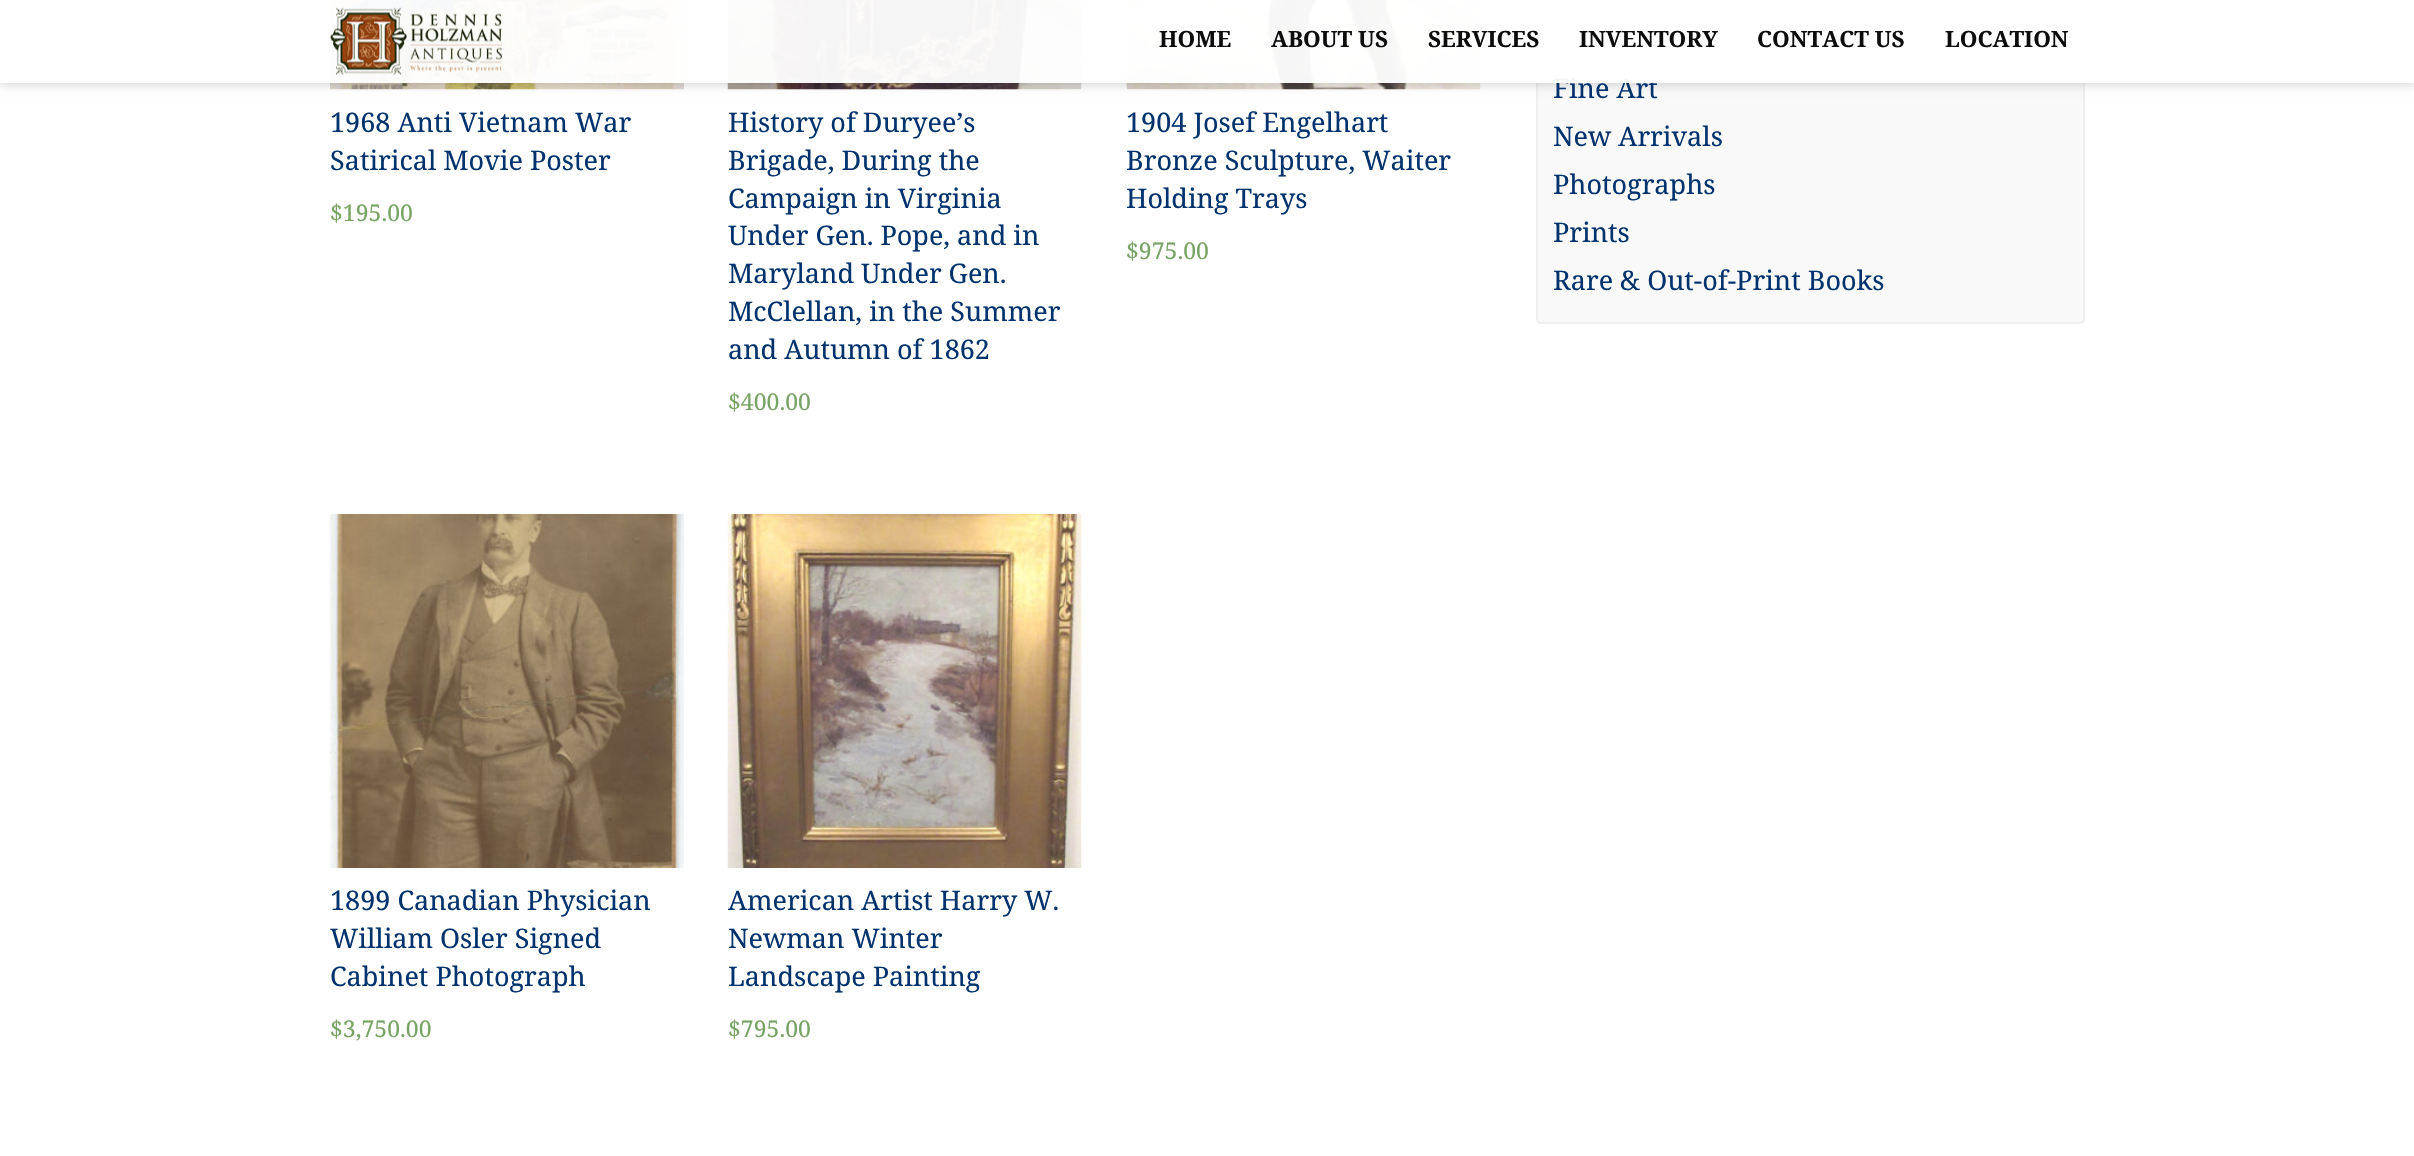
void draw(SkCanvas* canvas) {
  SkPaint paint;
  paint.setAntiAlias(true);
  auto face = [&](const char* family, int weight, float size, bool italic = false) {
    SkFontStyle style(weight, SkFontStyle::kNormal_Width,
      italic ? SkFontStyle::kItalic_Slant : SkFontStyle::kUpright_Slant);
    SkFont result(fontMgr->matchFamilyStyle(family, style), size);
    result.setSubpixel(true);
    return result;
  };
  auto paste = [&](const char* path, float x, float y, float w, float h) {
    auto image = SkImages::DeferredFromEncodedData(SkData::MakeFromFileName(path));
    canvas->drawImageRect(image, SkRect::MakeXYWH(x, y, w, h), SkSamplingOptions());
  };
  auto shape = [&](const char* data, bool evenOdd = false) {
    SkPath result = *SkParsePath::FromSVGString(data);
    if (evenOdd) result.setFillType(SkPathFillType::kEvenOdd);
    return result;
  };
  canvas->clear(0xffffffff);
  paste("img/2.png", 330, 0, 354, 90);
  paste("img/3.png", 727, 0, 355, 90);
  paste("img/4.png", 1126, 0, 355, 90);
  paint.setColor(0xfff9f9f9);
  canvas->drawRoundRect(SkRect::MakeXYWH(1537, -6, 547, 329), 4, 4, paint);
  paint.setStroke(true);
  paint.setStrokeWidth(2);
  paint.setColor(0xffeeeeee);
  canvas->drawRoundRect(SkRect::MakeXYWH(1537, -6, 547, 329), 4, 4, paint);
  canvas->save();
  canvas->clipPath(shape("M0 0H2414V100H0ZM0 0H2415V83H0Z", true), true);
  paint.setStroke(false);
  paint.setColor(0x30000000);
  paint.setMaskFilter(SkMaskFilter::MakeBlur(kNormal_SkBlurStyle, 5));
  canvas->drawRect(SkRect::MakeXYWH(0, 2, 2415, 82), paint);
  paint.setMaskFilter(nullptr);
  canvas->restore();
  paste("img/5.png", 330, 514, 354, 354);
  paste("img/6.png", 727, 514, 355, 354);
  auto f0 = face("Noto Serif", 400, 27);
  paint.setColor(0xff00326d);
  canvas->drawString("1968 Anti Vietnam War", 330, 132, f0, paint);
  canvas->drawString("Satirical Movie Poster", 330, 170, f0, paint);
  auto f1 = face("Noto Serif", 400, 23);
  paint.setColor(0xff77a464);
  canvas->drawString("$195.00", 330, 221, f1, paint);
  paint.setColor(0xff00326d);
  {
    const struct { const char* s; float x, y; } items[] = {
      {"History of Duryee’s", 728, 132},
      {"Brigade, During the", 728, 170},
      {"Campaign in Virginia", 728, 208},
      {"Under Gen. Pope, and in", 728, 245},
      {"Maryland Under Gen.", 728, 283},
      {"McClellan, in the Summer", 728, 321},
      {"and Autumn of 1862", 728, 359},
    };
    for (auto [s, x, y] : items) {
      canvas->drawString(s, x, y, f0, paint);
    }
  }
  paint.setColor(0xff77a464);
  canvas->drawString("$400.00", 728, 410, f1, paint);
  paint.setColor(0xff00326d);
  {
    const struct { const char* s; float x, y; } items[] = {
      {"1904 Josef Engelhart", 1126, 132},
      {"Bronze Sculpture, Waiter", 1126, 170},
      {"Holding Trays", 1126, 208},
    };
    for (auto [s, x, y] : items) {
      canvas->drawString(s, x, y, f0, paint);
    }
  }
  paint.setColor(0xff77a464);
  canvas->drawString("$975.00", 1126, 259, f1, paint);
  paint.setColor(0xff00326d);
  {
    const struct { const char* s; float x, y; } items[] = {
      {"1899 Canadian Physician", 330, 910},
      {"William Osler Signed", 330, 948},
      {"Cabinet Photograph", 330, 986},
    };
    for (auto [s, x, y] : items) {
      canvas->drawString(s, x, y, f0, paint);
    }
  }
  paint.setColor(0xff77a464);
  canvas->drawString("$3,750.00", 330, 1037, f1, paint);
  paint.setColor(0xff00326d);
  {
    const struct { const char* s; float x, y; } items[] = {
      {"American Artist Harry W.", 728, 910},
      {"Newman Winter", 728, 948},
      {"Landscape Painting", 728, 986},
    };
    for (auto [s, x, y] : items) {
      canvas->drawString(s, x, y, f0, paint);
    }
  }
  paint.setColor(0xff77a464);
  canvas->drawString("$795.00", 728, 1037, f1, paint);
  paint.setColor(0xff00326d);
  canvas->drawString("Fine Art", 1553, 98, f0, paint);
  paint.setColor(0xf2ffffff);
  canvas->drawRect(SkRect::MakeXYWH(0, 0, 2414, 83), paint);
  auto f2 = face("Noto Serif", 700, 22.5f);
  paint.setColor(0xff0d0d0d);
  {
    const struct { const char* s; float x, y; } items[] = {
      {"LOCATION", 1945, 47},
      {"CONTACT US", 1757, 47},
      {"INVENTORY", 1579, 47},
      {"SERVICES", 1428, 47},
      {"ABOUT US", 1271, 47},
      {"HOME", 1159, 47},
    };
    for (auto [s, x, y] : items) {
      canvas->drawString(s, x, y, f2, paint);
    }
  }
  paste("img/1.png", 330, 7, 172, 68);
  paint.setColor(0xff00326d);
  {
    const struct { const char* s; float x, y; } items[] = {
      {"New Arrivals", 1553, 146},
      {"Photographs", 1553, 194},
      {"Prints", 1553, 242},
      {"Rare & Out-of-Print Books", 1553, 290},
    };
    for (auto [s, x, y] : items) {
      canvas->drawString(s, x, y, f0, paint);
    }
  }
}
